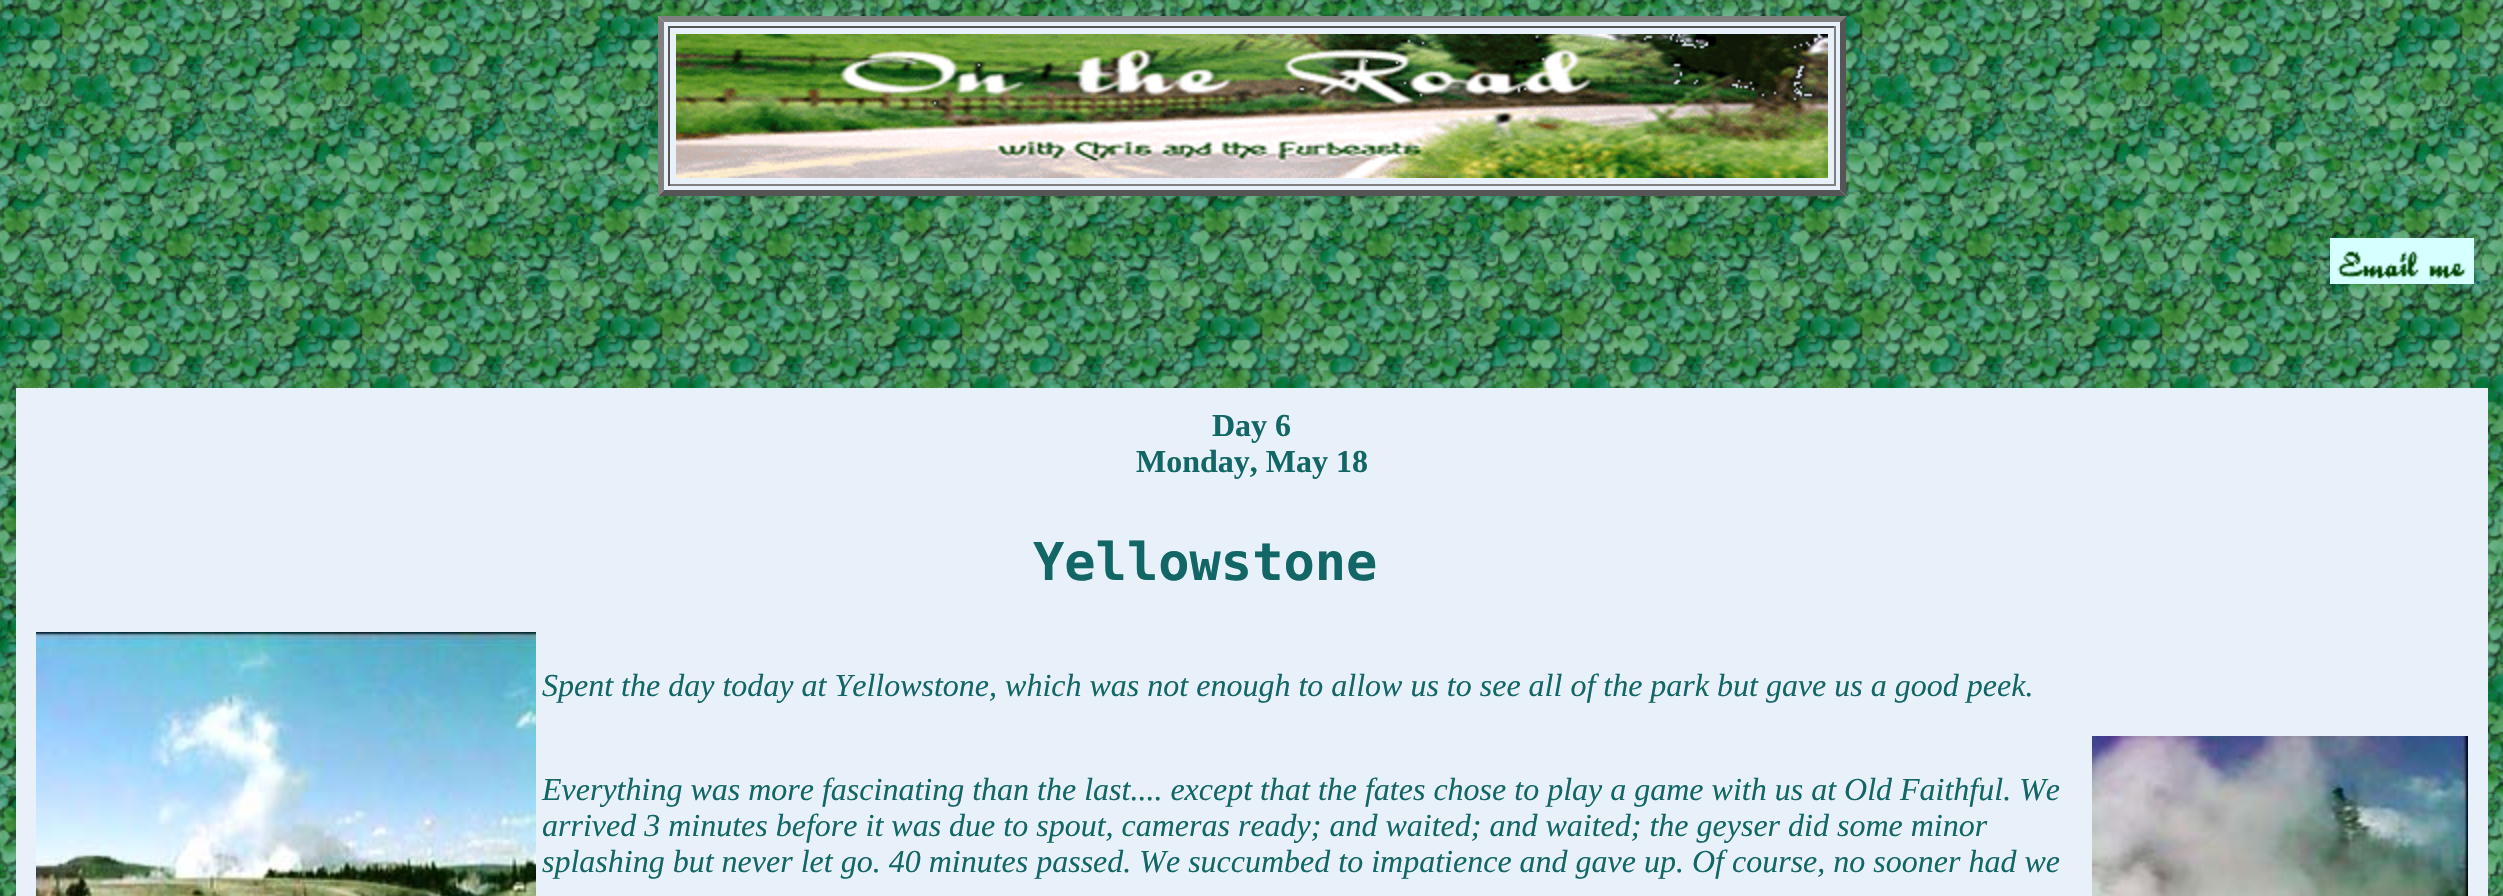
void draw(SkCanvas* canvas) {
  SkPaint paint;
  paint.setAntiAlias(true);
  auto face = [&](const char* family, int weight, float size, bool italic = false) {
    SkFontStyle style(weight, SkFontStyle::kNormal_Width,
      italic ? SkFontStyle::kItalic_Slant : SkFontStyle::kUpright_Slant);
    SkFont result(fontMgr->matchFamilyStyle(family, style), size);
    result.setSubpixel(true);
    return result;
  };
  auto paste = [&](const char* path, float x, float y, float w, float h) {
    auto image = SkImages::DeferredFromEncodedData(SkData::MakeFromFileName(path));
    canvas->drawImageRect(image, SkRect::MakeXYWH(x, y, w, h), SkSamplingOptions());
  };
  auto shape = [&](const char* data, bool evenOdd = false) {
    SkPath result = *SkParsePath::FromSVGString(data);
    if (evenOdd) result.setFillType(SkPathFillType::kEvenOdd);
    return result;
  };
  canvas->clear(0xffffffff);
  paste("img/1.png", 0, 0, 2503, 896);
  paint.setColor(0xffe8f1f9);
  canvas->drawRect(SkRect::MakeXYWH(658, 16, 1188, 180), paint);
  paint.setColor(0xff808080);
  canvas->drawPath(shape("M658 16H1846L1840 22H664Z"), paint);
  paint.setColor(0xff555555);
  canvas->drawPath(shape("M1846 16V196L1840 190V22Z"), paint);
  canvas->drawPath(shape("M1846 196H658L664 190H1840Z"), paint);
  paint.setColor(0xff808080);
  canvas->drawPath(shape("M658 196V16L664 22V190Z"), paint);
  {
    const struct { float x, y, w, h; SkColor color; } items[] = {
      {668, 26, 1168, 2, 0xff555555},
      {1834, 26, 2, 160, 0xff808080},
      {668, 184, 1168, 2, 0xff808080},
      {668, 26, 2, 160, 0xff555555},
    };
    for (auto [x, y, w, h, color] : items) {
      paint.setColor(color);
      canvas->drawRect(SkRect::MakeXYWH(x, y, w, h), paint);
    }
  }
  paste("img/2.png", 676, 34, 1152, 144);
  paste("img/3.png", 2330, 238, 144, 46);
  paint.setColor(0xffe8f1f9);
  canvas->drawRect(SkRect::MakeXYWH(16, 388, 2472, 508), paint);
  paste("img/4.png", 36, 632, 500, 264);
  paste("img/5.png", 2092, 736, 376, 160);
  auto f0 = face("Liberation Serif", 400, 32);
  paint.setColor(0xff136666);
  canvas->drawString(".", 2474, 284, f0, paint);
  auto f1 = face("Liberation Serif", 700, 32);
  canvas->drawString("Day 6", 1212, 436, f1, paint);
  canvas->drawString("Monday, May 18", 1136, 472, f1, paint);
  auto f2 = face("DejaVu Sans Mono", 700, 52);
  canvas->drawString("Yellowstone", 1033, 580, f2, paint);
  auto f3 = face("Liberation Serif", 400, 32, true);
  {
    const struct { const char* s; float x, y; } items[] = {
      {"Spent the day today at Yellowstone, which was not enough to allow us to see all of the park but gave us a good peek.", 542, 696},
      {"Everything was more fascinating than the last.... except that the fates chose to play a game with us at Old Faithful. We", 542, 800},
      {"arrived 3 minutes before it was due to spout, cameras ready; and waited; and waited; the geyser did some minor", 542, 836},
      {"splashing but never let go. 40 minutes passed. We succumbed to impatience and gave up. Of course, no sooner had we", 542, 872},
    };
    for (auto [s, x, y] : items) {
      canvas->drawString(s, x, y, f3, paint);
    }
  }
}
